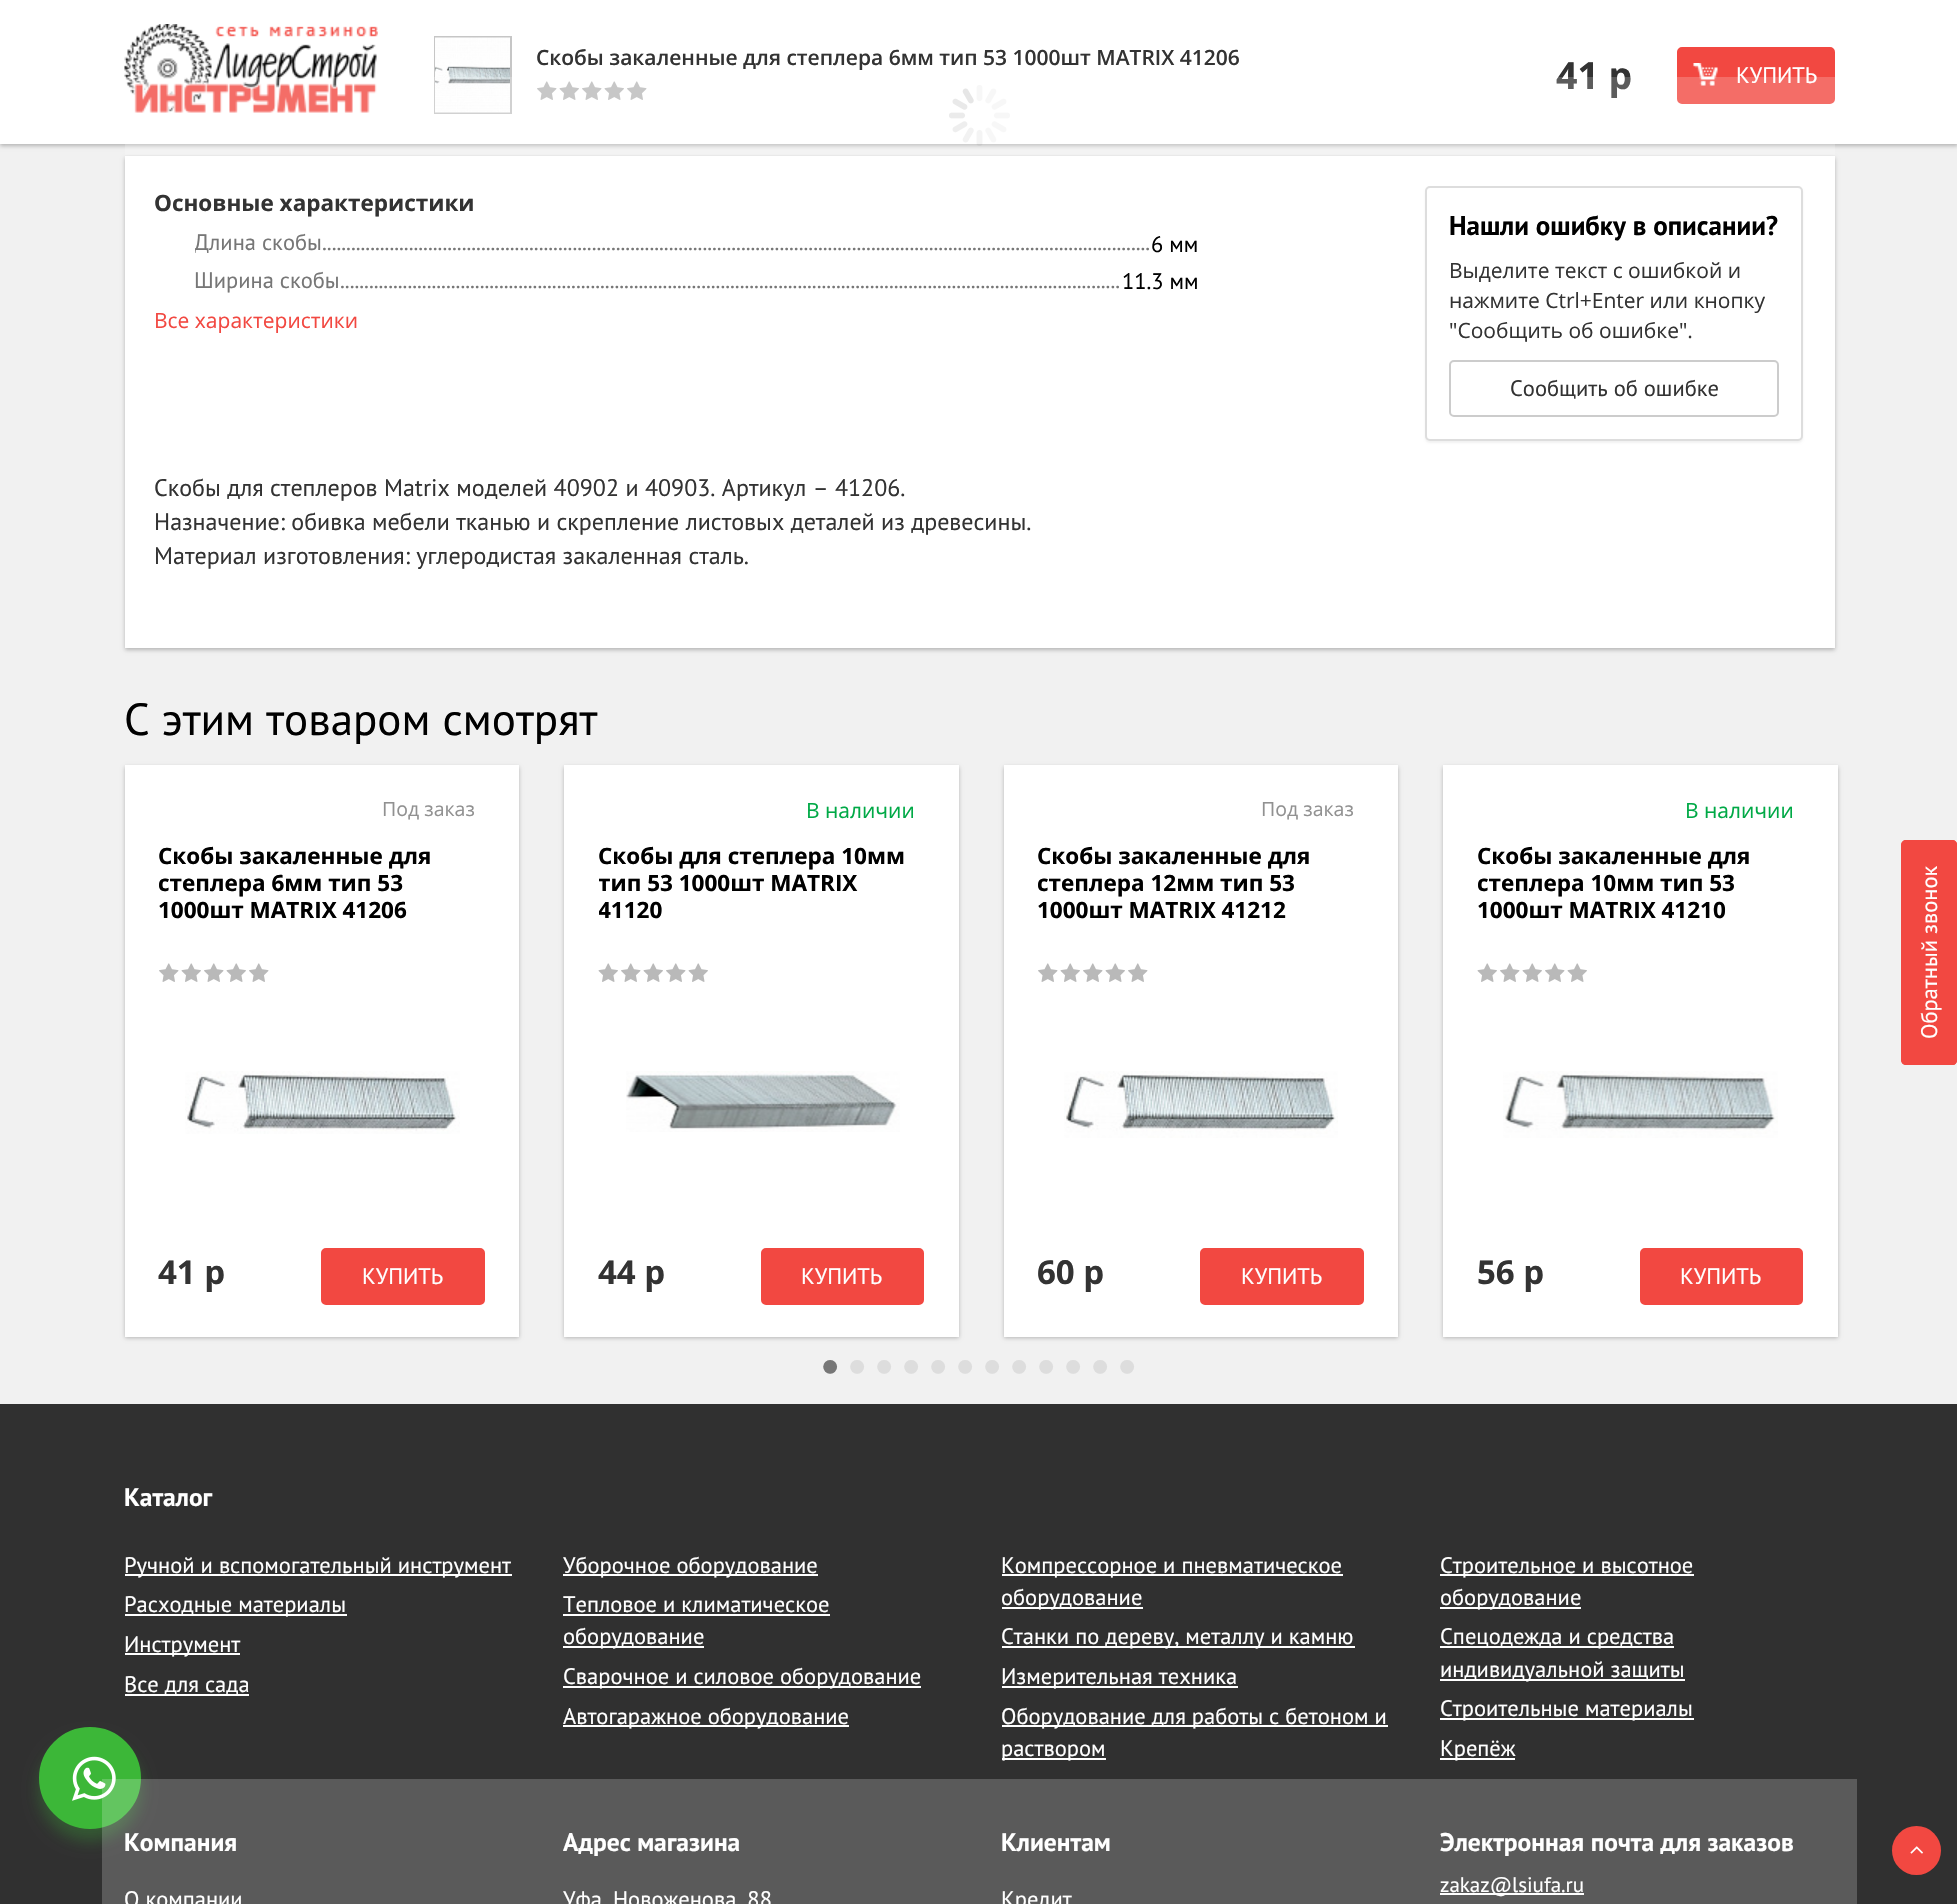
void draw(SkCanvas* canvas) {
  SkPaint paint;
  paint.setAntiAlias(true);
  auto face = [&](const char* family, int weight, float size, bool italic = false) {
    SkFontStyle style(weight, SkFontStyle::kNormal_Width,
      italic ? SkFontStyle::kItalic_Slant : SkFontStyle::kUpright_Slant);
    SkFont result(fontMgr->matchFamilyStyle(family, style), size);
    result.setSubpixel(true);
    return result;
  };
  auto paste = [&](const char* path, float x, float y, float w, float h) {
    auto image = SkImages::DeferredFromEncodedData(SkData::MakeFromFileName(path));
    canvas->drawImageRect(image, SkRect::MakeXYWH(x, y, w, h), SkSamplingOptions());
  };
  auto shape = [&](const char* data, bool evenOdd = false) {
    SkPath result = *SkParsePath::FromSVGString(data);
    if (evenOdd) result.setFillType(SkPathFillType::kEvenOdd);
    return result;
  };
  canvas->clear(0xfff1f1f1);
  paint.setColor(0x40000000);
  paint.setMaskFilter(SkMaskFilter::MakeBlur(kNormal_SkBlurStyle, 2));
  canvas->drawRect(SkRect::MakeXYWH(0, 2, 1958, 144), paint);
  paint.setMaskFilter(nullptr);
  paint.setColor(0xffffffff);
  canvas->drawRect(SkRect::MakeXYWH(0, 0, 1957, 144), paint);
  paste("img/1.png", 124, 24, 254, 89);
  paint.setStroke(true);
  paint.setStrokeWidth(2);
  paint.setColor(0xffc6c6c6);
  canvas->drawRect(SkRect::MakeXYWH(435, 37, 76, 76), paint);
  paste("img/2.png", 435, 37, 75, 76);
  paste("img/3.png", 537, 81, 20, 19);
  paste("img/4.png", 559, 81, 20, 19);
  paste("img/3.png", 582, 81, 20, 19);
  paste("img/4.png", 604, 81, 20, 19);
  paste("img/3.png", 627, 81, 20, 19);
  paint.setStroke(false);
  paint.setColor(0xfff24841);
  canvas->drawRoundRect(SkRect::MakeXYWH(1678, 48, 156, 55), 4, 4, paint);
  paint.setStroke(true);
  canvas->drawRoundRect(SkRect::MakeXYWH(1678, 48, 156, 55), 4, 4, paint);
  paste("img/5.png", 1693, 63, 25, 23);
  paint.setStroke(false);
  canvas->drawPath(shape("M1901 1060V845C1901 842 1903 840 1906 840H1953C1955 840 1957 842 1957 845V1060C1957 1063 1955 1065 1953 1065H1906C1903 1065 1901 1063 1901 1060Z"), paint);
  paint.setStroke(true);
  paint.setStrokeWidth(1.5f);
  canvas->drawPath(shape("M1902 1060V845C1902 843 1904 841 1906 841H1953C1955 841 1956.5 843 1956.5 845V1060C1956.5 1062 1955 1064 1953 1064H1906C1904 1064 1902 1062 1902 1060Z"), paint);
  paint.setStroke(false);
  paint.setColor(0x40000000);
  paint.setMaskFilter(SkMaskFilter::MakeBlur(kNormal_SkBlurStyle, 2));
  canvas->drawRect(SkRect::MakeXYWH(125, 158, 1710, 492), paint);
  paint.setMaskFilter(nullptr);
  paint.setColor(0xffffffff);
  canvas->drawRect(SkRect::MakeXYWH(125, 156, 1710, 492), paint);
  paint.setColor(0x0d000000);
  paint.setMaskFilter(SkMaskFilter::MakeBlur(kNormal_SkBlurStyle, 1));
  canvas->drawRoundRect(SkRect::MakeXYWH(1425, 188, 378, 255), 5, 5, paint);
  paint.setMaskFilter(nullptr);
  paint.setColor(0xffffffff);
  canvas->drawRoundRect(SkRect::MakeXYWH(1426, 187, 376, 253), 4, 4, paint);
  paint.setStroke(true);
  paint.setStrokeWidth(2);
  paint.setColor(0xffdddddd);
  canvas->drawRoundRect(SkRect::MakeXYWH(1426, 187, 376, 253), 4, 4, paint);
  paint.setColor(0xffcccccc);
  canvas->drawRoundRect(SkRect::MakeXYWH(1450, 361, 328, 55), 4, 4, paint);
  paint.setStroke(false);
  paint.setColor(0x40000000);
  paint.setMaskFilter(SkMaskFilter::MakeBlur(kNormal_SkBlurStyle, 2));
  canvas->drawRect(SkRect::MakeXYWH(125, 767, 394, 571), paint);
  paint.setMaskFilter(nullptr);
  paint.setColor(0xffffffff);
  canvas->drawRect(SkRect::MakeXYWH(125, 765, 394, 572), paint);
  paste("img/3.png", 159, 963, 20, 19);
  paste("img/4.png", 181, 963, 20, 19);
  paste("img/3.png", 204, 963, 20, 19);
  paste("img/4.png", 226, 963, 20, 19);
  paste("img/3.png", 249, 963, 20, 19);
  paste("img/7.png", 185, 1071, 275, 63);
  paint.setColor(0xfff24841);
  canvas->drawRoundRect(SkRect::MakeXYWH(322, 1249, 162, 55), 4, 4, paint);
  paint.setStroke(true);
  canvas->drawRoundRect(SkRect::MakeXYWH(322, 1249, 162, 55), 4, 4, paint);
  paint.setStroke(false);
  paint.setColor(0x40000000);
  paint.setMaskFilter(SkMaskFilter::MakeBlur(kNormal_SkBlurStyle, 2));
  canvas->drawRect(SkRect::MakeXYWH(564, 767, 395, 571), paint);
  paint.setMaskFilter(nullptr);
  paint.setColor(0xffffffff);
  canvas->drawRect(SkRect::MakeXYWH(564, 765, 395, 572), paint);
  paste("img/4.png", 598, 963, 20, 19);
  paste("img/3.png", 621, 963, 20, 19);
  paste("img/4.png", 643, 963, 20, 19);
  paste("img/3.png", 666, 963, 20, 19);
  paste("img/4.png", 688, 963, 20, 19);
  paste("img/8.png", 626, 1071, 274, 61);
  paint.setColor(0xfff24841);
  canvas->drawRoundRect(SkRect::MakeXYWH(762, 1249, 161, 55), 4, 4, paint);
  paint.setStroke(true);
  canvas->drawRoundRect(SkRect::MakeXYWH(762, 1249, 161, 55), 4, 4, paint);
  paint.setStroke(false);
  paint.setColor(0x40000000);
  paint.setMaskFilter(SkMaskFilter::MakeBlur(kNormal_SkBlurStyle, 2));
  canvas->drawRect(SkRect::MakeXYWH(1004, 767, 394, 571), paint);
  paint.setMaskFilter(nullptr);
  paint.setColor(0xffffffff);
  canvas->drawRect(SkRect::MakeXYWH(1004, 765, 394, 572), paint);
  paste("img/3.png", 1038, 963, 20, 19);
  paste("img/4.png", 1060, 963, 20, 19);
  paste("img/3.png", 1083, 963, 20, 19);
  paste("img/4.png", 1105, 963, 20, 19);
  paste("img/3.png", 1128, 963, 20, 19);
  paste("img/9.png", 1064, 1071, 274, 67);
  paint.setColor(0xfff24841);
  canvas->drawRoundRect(SkRect::MakeXYWH(1201, 1249, 162, 55), 4, 4, paint);
  paint.setStroke(true);
  canvas->drawRoundRect(SkRect::MakeXYWH(1201, 1249, 162, 55), 4, 4, paint);
  paint.setStroke(false);
  paint.setColor(0x40000000);
  paint.setMaskFilter(SkMaskFilter::MakeBlur(kNormal_SkBlurStyle, 2));
  canvas->drawRect(SkRect::MakeXYWH(1443, 767, 395, 571), paint);
  paint.setMaskFilter(nullptr);
  paint.setColor(0xffffffff);
  canvas->drawRect(SkRect::MakeXYWH(1443, 765, 395, 572), paint);
  paste("img/4.png", 1477, 963, 20, 19);
  paste("img/3.png", 1500, 963, 20, 19);
  paste("img/4.png", 1522, 963, 20, 19);
  paste("img/3.png", 1545, 963, 20, 19);
  paste("img/4.png", 1567, 963, 20, 19);
  paste("img/10.png", 1503, 1071, 275, 67);
  paint.setColor(0xfff24841);
  canvas->drawRoundRect(SkRect::MakeXYWH(1641, 1249, 161, 55), 4, 4, paint);
  paint.setStroke(true);
  canvas->drawRoundRect(SkRect::MakeXYWH(1641, 1249, 161, 55), 4, 4, paint);
  paint.setStroke(false);
  paint.setColor(0xff303030);
  canvas->drawRect(SkRect::MakeXYWH(0, 1404, 1957, 500), paint);
  paint.setColor(0x4d3cb738);
  paint.setMaskFilter(SkMaskFilter::MakeBlur(kNormal_SkBlurStyle, 7.5f));
  canvas->drawRoundRect(SkRect::MakeXYWH(39, 1739, 102, 102), 51, 51, paint);
  paint.setMaskFilter(nullptr);
  paint.setColor(0xff3cb738);
  canvas->drawCircle(90, 1778, 49.5f, paint);
  paint.setStroke(true);
  paint.setStrokeWidth(3);
  canvas->drawCircle(90, 1778, 49.5f, paint);
  paste("img/11.png", 72, 1756, 44, 45);
  paint.setStroke(false);
  {
    const struct { float x, y, w, h; SkColor color; } items[] = {
      {125, 1574, 387, 2, 0xffffffff},
      {125, 1614, 222, 2, 0xffffffff},
      {125, 1653, 115, 2, 0xffffffff},
      {125, 1694, 124, 2, 0xffffffff},
      {563, 1574, 255, 2, 0xffffffff},
      {563, 1614, 267, 2, 0xffffffff},
      {563, 1646, 141, 2, 0xffffffff},
      {563, 1686, 358, 2, 0xffffffff},
      {563, 1725, 286, 2, 0xffffffff},
      {1002, 1574, 341, 2, 0xffffffff},
      {1002, 1607, 141, 2, 0xffffffff},
      {1002, 1646, 353, 2, 0xffffffff},
      {1002, 1686, 236, 2, 0xffffffff},
      {1002, 1725, 386, 2, 0xffffffff},
      {1002, 1758, 104, 2, 0xffffffff},
      {1440, 1574, 254, 2, 0xffffffff},
      {1440, 1607, 141, 2, 0xffffffff},
      {1440, 1646, 234, 2, 0xffffffff},
      {1440, 1679, 245, 2, 0xffffffff},
      {1440, 1718, 254, 2, 0xffffffff},
      {1440, 1758, 75, 2, 0xffffffff},
      {1440, 1893, 144, 2, 0xffffffff},
    };
    for (auto [x, y, w, h, color] : items) {
      paint.setColor(color);
      canvas->drawRect(SkRect::MakeXYWH(x, y, w, h), paint);
    }
  }
  paint.setColor(0xfff24841);
  canvas->drawCircle(1916.5f, 1850.5f, 24.5f, paint);
  paste("img/12.png", 1910, 1846, 13, 8);
  auto f0 = face("Open Sans", 600, 21);
  paint.setColor(0xff333333);
  canvas->drawString("Скобы закаленные для степлера 6мм тип 53 1000шт MATRIX 41206", 536, 65, f0, paint);
  auto f1 = face("Open Sans", 700, 37.5f);
  canvas->drawString("41 р", 1556, 89, f1, paint);
  auto f2 = face("PT Sans", 400, 22.5f);
  paint.setColor(0xffffffff);
  canvas->drawString("КУПИТЬ", 1736, 83, f2, paint);
  canvas->save();
  canvas->rotate(-90, 1937, 1039);
  canvas->drawString("Обратный звонок", 1937, 1039, f2, paint);
  canvas->restore();
  paint.setColor(0x33ffffff);
  canvas->drawRect(SkRect::MakeXYWH(125, 77, 1710, 78), paint);
  paste("img/6.png", 949, 85, 61, 61);
  auto f3 = face("Open Sans", 700, 22.5f);
  paint.setColor(0xff333333);
  canvas->drawString("Основные характеристики", 154, 211, f3, paint);
  canvas->save();
  canvas->clipRect(SkRect::MakeXYWH(195, 231, 956, 27));
  paint.setColor(0xff777777);
  canvas->drawString("Длина скобы", 194, 250, f2, paint);
  canvas->restore();
  canvas->drawString("............................................................................................................................................................................", 322, 250, f2, paint);
  paint.setColor(0xff000000);
  canvas->drawString("6 мм", 1151, 252, f2, paint);
  paint.setColor(0xff777777);
  canvas->drawString("Ширина скобы", 194, 288, f2, paint);
  canvas->drawString("..................................................................................................................................................................", 340, 288, f2, paint);
  paint.setColor(0xff000000);
  canvas->drawString("11.3 мм", 1122, 289, f2, paint);
  auto f4 = face("Open Sans", 400, 21);
  paint.setColor(0xfff24841);
  canvas->drawString("Все характеристики", 154, 328, f4, paint);
  auto f5 = face("PT Sans", 700, 27);
  paint.setColor(0xff000000);
  canvas->drawString("Нашли ошибку в описании?", 1449, 235, f5, paint);
  paint.setColor(0xff333333);
  {
    const struct { const char* s; float x, y; } items[] = {
      {"Выделите текст с ошибкой и", 1449, 278},
      {"нажмите Ctrl+Enter или кнопку", 1449, 308},
      {"\"Сообщить об ошибке\".", 1449, 338},
    };
    for (auto [s, x, y] : items) {
      canvas->drawString(s, x, y, f4, paint);
    }
  }
  canvas->drawString("Сообщить об ошибке", 1510, 396, f2, paint);
  auto f6 = face("PT Sans", 400, 24);
  {
    const struct { const char* s; float x, y; } items[] = {
      {"Скобы для степлеров Matrix моделей 40902 и 40903. Артикул – 41206.", 154, 496},
      {"Назначение: обивка мебели тканью и скрепление листовых деталей из древесины.", 154, 530},
      {"Материал изготовления: углеродистая закаленная сталь.", 154, 564},
    };
    for (auto [s, x, y] : items) {
      canvas->drawString(s, x, y, f6, paint);
    }
  }
  auto f7 = face("PT Sans", 400, 45);
  paint.setColor(0xff000000);
  canvas->drawString("С этим товаром смотрят", 124, 735, f7, paint);
  auto f8 = face("Open Sans", 400, 19.5f);
  paint.setColor(0xff919191);
  canvas->drawString("Под заказ", 382, 816, f8, paint);
  paint.setColor(0xff000000);
  {
    const struct { const char* s; float x, y; } items[] = {
      {"Скобы закаленные для", 158, 864},
      {"степлера 6мм тип 53", 158, 891},
      {"1000шт MATRIX 41206", 158, 918},
    };
    for (auto [s, x, y] : items) {
      canvas->drawString(s, x, y, f3, paint);
    }
  }
  auto f9 = face("Open Sans", 700, 33);
  paint.setColor(0xff333333);
  canvas->drawString("41 р", 158, 1284, f9, paint);
  paint.setColor(0xffffffff);
  canvas->drawString("КУПИТЬ", 362, 1284, f2, paint);
  paint.setColor(0xff00a946);
  canvas->drawString("В наличии", 806, 818, f4, paint);
  paint.setColor(0xff000000);
  canvas->drawString("Скобы для степлера 10мм", 598, 864, f3, paint);
  canvas->save();
  canvas->clipRect(SkRect::MakeXYWH(599, 842, 325, 114));
  canvas->drawString("тип 53 1000шт MATRIX", 598, 891, f3, paint);
  canvas->drawString("41120", 598, 918, f3, paint);
  canvas->restore();
  paint.setColor(0xff333333);
  canvas->drawString("44 р", 598, 1284, f9, paint);
  paint.setColor(0xffffffff);
  canvas->drawString("КУПИТЬ", 801, 1284, f2, paint);
  paint.setColor(0xff919191);
  canvas->drawString("Под заказ", 1261, 816, f8, paint);
  paint.setColor(0xff000000);
  {
    const struct { const char* s; float x, y; } items[] = {
      {"Скобы закаленные для", 1037, 864},
      {"степлера 12мм тип 53", 1037, 891},
      {"1000шт MATRIX 41212", 1037, 918},
    };
    for (auto [s, x, y] : items) {
      canvas->drawString(s, x, y, f3, paint);
    }
  }
  paint.setColor(0xff333333);
  canvas->drawString("60 р", 1037, 1284, f9, paint);
  paint.setColor(0xffffffff);
  canvas->drawString("КУПИТЬ", 1241, 1284, f2, paint);
  paint.setColor(0xff00a946);
  canvas->drawString("В наличии", 1685, 818, f4, paint);
  paint.setColor(0xff000000);
  canvas->drawString("Скобы закаленные для", 1477, 864, f3, paint);
  canvas->save();
  canvas->clipRect(SkRect::MakeXYWH(1478, 842, 325, 114));
  canvas->drawString("степлера 10мм тип 53", 1477, 891, f3, paint);
  canvas->restore();
  canvas->drawString("1000шт MATRIX 41210", 1477, 918, f3, paint);
  paint.setColor(0xff333333);
  canvas->drawString("56 р", 1477, 1284, f9, paint);
  paint.setColor(0xffffffff);
  canvas->drawString("КУПИТЬ", 1680, 1284, f2, paint);
  auto f10 = face("Liberation Serif", 400, 58);
  paint.setColor(0xff777777);
  canvas->drawString("•", 820, 1386, f10, paint);
  paint.setColor(0xffdddddd);
  {
    const struct { const char* s; float x, y; } items[] = {
      {"•", 847, 1386},
      {"•", 874, 1386},
      {"•", 901, 1386},
      {"•", 928, 1386},
      {"•", 955, 1386},
      {"•", 982, 1386},
      {"•", 1009, 1386},
      {"•", 1036, 1386},
      {"•", 1063, 1386},
      {"•", 1090, 1386},
      {"•", 1117, 1386},
    };
    for (auto [s, x, y] : items) {
      canvas->drawString(s, x, y, f10, paint);
    }
  }
  auto f11 = face("PT Sans", 700, 25.5f);
  paint.setColor(0xffffffff);
  canvas->drawString("Каталог", 124, 1506, f11, paint);
  {
    const struct { const char* s; float x, y; } items[] = {
      {"Ручной и вспомогательный инструмент", 124, 1573},
      {"Расходные материалы", 124, 1612},
      {"Инструмент", 124, 1652},
      {"Все для сада", 124, 1692},
      {"Уборочное оборудование", 563, 1573},
      {"Тепловое и климатическое", 563, 1612},
      {"оборудование", 563, 1644},
      {"Сварочное и силовое оборудование", 563, 1684},
      {"Автогаражное оборудование", 563, 1724},
      {"Компрессорное и пневматическое", 1001, 1573},
      {"оборудование", 1001, 1605},
      {"Станки по дереву, металлу и камню", 1001, 1644},
      {"Измерительная техника", 1001, 1684},
      {"Оборудование для работы с бетоном и", 1001, 1724},
      {"раствором", 1001, 1756},
      {"Строительное и высотное", 1440, 1573},
      {"оборудование", 1440, 1605},
      {"Спецодежда и средства", 1440, 1644},
      {"индивидуальной защиты", 1440, 1677},
      {"Строительные материалы", 1440, 1716},
      {"Крепёж", 1440, 1756},
    };
    for (auto [s, x, y] : items) {
      canvas->drawString(s, x, y, f2, paint);
    }
  }
  canvas->drawString("Компания", 124, 1851, f11, paint);
  canvas->drawString("О компании", 124, 1907, f2, paint);
  canvas->drawString("Адрес магазина", 563, 1851, f11, paint);
  canvas->drawString("Уфа, Новоженова, 88", 563, 1907, f2, paint);
  canvas->drawString("Клиентам", 1001, 1851, f11, paint);
  canvas->drawString("Кредит", 1001, 1907, f2, paint);
  canvas->drawString("Электронная почта для заказов", 1440, 1851, f11, paint);
  auto f12 = face("PT Sans", 400, 21);
  canvas->drawString("zakaz@lsiufa.ru", 1440, 1892, f12, paint);
  paint.setColor(0x33ffffff);
  canvas->drawRect(SkRect::MakeXYWH(102, 1779, 1755, 125), paint);
}
